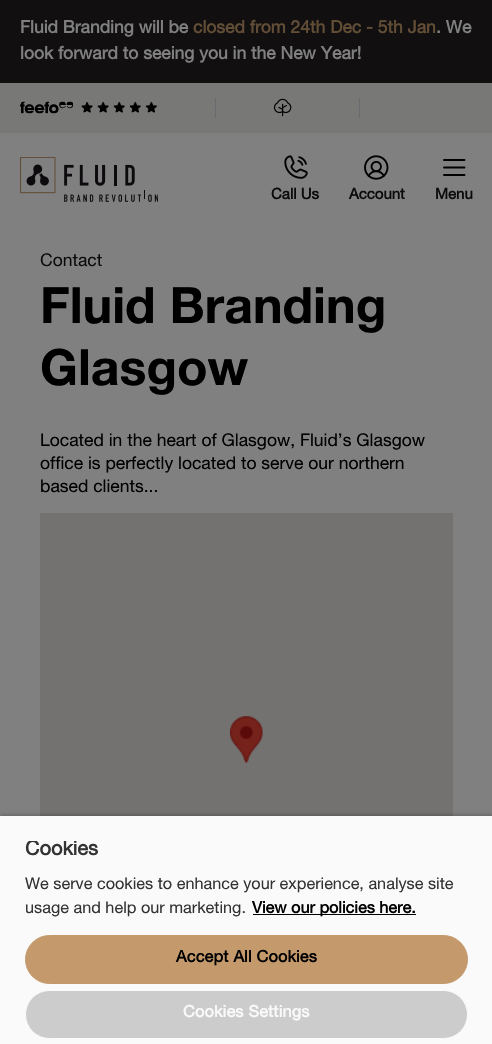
void draw(SkCanvas* canvas) {
  SkPaint paint;
  paint.setAntiAlias(true);
  auto face = [&](const char* family, int weight, float size, bool italic = false) {
    SkFontStyle style(weight, SkFontStyle::kNormal_Width,
      italic ? SkFontStyle::kItalic_Slant : SkFontStyle::kUpright_Slant);
    SkFont result(fontMgr->matchFamilyStyle(family, style), size);
    result.setSubpixel(true);
    return result;
  };
  auto writeSpaced = [&](const char* s, float x, float y, const SkFont& font, const SkPaint& ink, float letter, float word) {
    std::vector<SkGlyphID> glyphs(font.countText(s, strlen(s), SkTextEncoding::kUTF8));
    std::vector<float> xs(glyphs.size());
    font.textToGlyphs(s, strlen(s), SkTextEncoding::kUTF8, glyphs);
    font.getXPos(glyphs, xs, x);
    float extra = 0;
    for (size_t i = 0; i < glyphs.size(); i++) {
      xs[i] += extra;
      extra += letter + word * (glyphs[i] == font.unicharToGlyph(' '));
    }
    canvas->drawTextBlob(SkTextBlob::MakeFromPosHGlyphs(glyphs, xs, y, font), 0, 0, ink);
  };
  auto paste = [&](const char* path, float x, float y, float w, float h) {
    auto image = SkImages::DeferredFromEncodedData(SkData::MakeFromFileName(path));
    canvas->drawImageRect(image, SkRect::MakeXYWH(x, y, w, h), SkSamplingOptions());
  };
  auto shape = [&](const char* data, bool evenOdd = false) {
    SkPath result = *SkParsePath::FromSVGString(data);
    if (evenOdd) result.setFillType(SkPathFillType::kEvenOdd);
    return result;
  };
  canvas->clear(0xff808080);
  paint.setColor(0xff110f10);
  canvas->drawRect(SkRect::MakeXYWH(0, 0, 492, 83), paint);
  paint.setColor(0xff787877);
  canvas->drawRect(SkRect::MakeXYWH(0, 83, 492, 50), paint);
  paste("img/1.png", 20, 101, 137, 13);
  paint.setColor(0xff696b6e);
  canvas->drawRect(SkRect::MakeXYWH(215, 98, 1, 20), paint);
  paste("img/2.png", 273, 98, 19, 19);
  canvas->drawRect(SkRect::MakeXYWH(359, 98, 1, 20), paint);
  paste("img/3.png", 20, 157, 138, 45);
  paste("img/4.png", 284, 155, 24, 24);
  paste("img/5.png", 364, 155, 25, 25);
  paint.setStroke(true);
  paint.setStrokeWidth(1.9f);
  paint.setStrokeCap(SkPaint::kRound_Cap);
  paint.setStrokeJoin(SkPaint::kRound_Join);
  paint.setColor(0xff000000);
  canvas->drawPath(shape("M444 167.5H464.5M444 160H464.5M444 175H464.5"), paint);
  paint.setStroke(false);
  paint.setColor(0xff737270);
  canvas->drawRect(SkRect::MakeXYWH(40, 513, 413, 303), paint);
  paste("img/6.png", 230, 716, 33, 47);
  paint.setColor(0x59000000);
  paint.setMaskFilter(SkMaskFilter::MakeBlur(kNormal_SkBlurStyle, 2.5f));
  canvas->drawRect(SkRect::MakeXYWH(0, 816, 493, 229), paint);
  paint.setMaskFilter(nullptr);
  paint.setColor(0xfffafafa);
  canvas->drawRect(SkRect::MakeXYWH(0, 816, 492, 228), paint);
  paint.setColor(0xff000000);
  canvas->drawRect(SkRect::MakeXYWH(253, 914, 163, 1), paint);
  paint.setColor(0xffc49a6c);
  canvas->drawRoundRect(SkRect::MakeXYWH(25.5f, 935.5f, 442, 48), 24, 24, paint);
  paint.setStroke(true);
  paint.setStrokeWidth(1);
  paint.setStrokeCap(SkPaint::kButt_Cap);
  paint.setStrokeJoin(SkPaint::kMiter_Join);
  canvas->drawRoundRect(SkRect::MakeXYWH(25.5f, 935.5f, 442, 48), 24, 24, paint);
  paint.setStroke(false);
  paint.setColor(0xffcccccc);
  canvas->drawRoundRect(SkRect::MakeXYWH(25.5f, 990.5f, 442, 48), 24, 24, paint);
  paint.setStroke(true);
  paint.setColor(0xfffafafa);
  canvas->drawRoundRect(SkRect::MakeXYWH(25.5f, 990.5f, 442, 48), 24, 24, paint);
  auto f0 = face("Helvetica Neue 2", 700, 17.5f);
  paint.setStroke(false);
  paint.setColor(0xff808080);
  canvas->drawString("Fluid Branding will be", 20, 33, f0, paint);
  paint.setColor(0xff624d36);
  canvas->drawString("closed from 24th Dec - 5th Jan", 193, 33, f0, paint);
  paint.setColor(0xff808080);
  canvas->drawString(". We", 436, 33, f0, paint);
  canvas->drawString("look forward to seeing you in the New Year!", 20, 59, f0, paint);
  auto f1 = face("Helvetica Neue 2", 700, 15);
  paint.setColor(0xff0c0b0c);
  {
    const struct { const char* s; float x, y; } items[] = {
      {"Call Us", 271, 199},
      {"Account", 349, 199},
      {"Menu", 435, 199},
    };
    for (auto [s, x, y] : items) {
      canvas->drawString(s, x, y, f1, paint);
    }
  }
  auto f2 = face("Helvetica Neue", 400, 17.5f);
  canvas->drawString("Contact", 40, 266, f2, paint);
  auto f3 = face("Helvetica Neue", 700, 50);
  paint.setColor(0xff000000);
  canvas->drawString("Fluid Branding", 40, 323, f3, paint);
  canvas->drawString("Glasgow", 40, 385, f3, paint);
  {
    const struct { const char* s; float x, y; } items[] = {
      {"Located in the heart of Glasgow, Fluid’s Glasgow", 40, 446},
      {"office is perfectly located to serve our northern", 40, 469},
      {"based clients...", 40, 492},
    };
    for (auto [s, x, y] : items) {
      canvas->drawString(s, x, y, f2, paint);
    }
  }
  canvas->save();
  canvas->clipRect(SkRect::MakeXYWH(25, 841, 443, 94));
  auto f4 = face("Helvetica Neue 2", 700, 20);
  paint.setColor(0xff333333);
  canvas->drawString("Cookies", 25, 855, f4, paint);
  canvas->restore();
  auto f5 = face("Helvetica Neue", 400, 16.25f);
  canvas->drawString("We serve cookies to enhance your experience, analyse site", 25, 889, f5, paint);
  canvas->drawString("usage and help our marketing.", 25, 913, f5, paint);
  auto f6 = face("Helvetica Neue 2", 700, 16.25f);
  paint.setColor(0xff000000);
  canvas->drawString("View our policies here.", 252, 913, f6, paint);
  writeSpaced("Accept All Cookies", 176, 962, f6, paint, 0.2f, 0);
  paint.setColor(0xfffafafa);
  writeSpaced("Cookies Settings", 183, 1017, f6, paint, 0.2f, 0);
}
